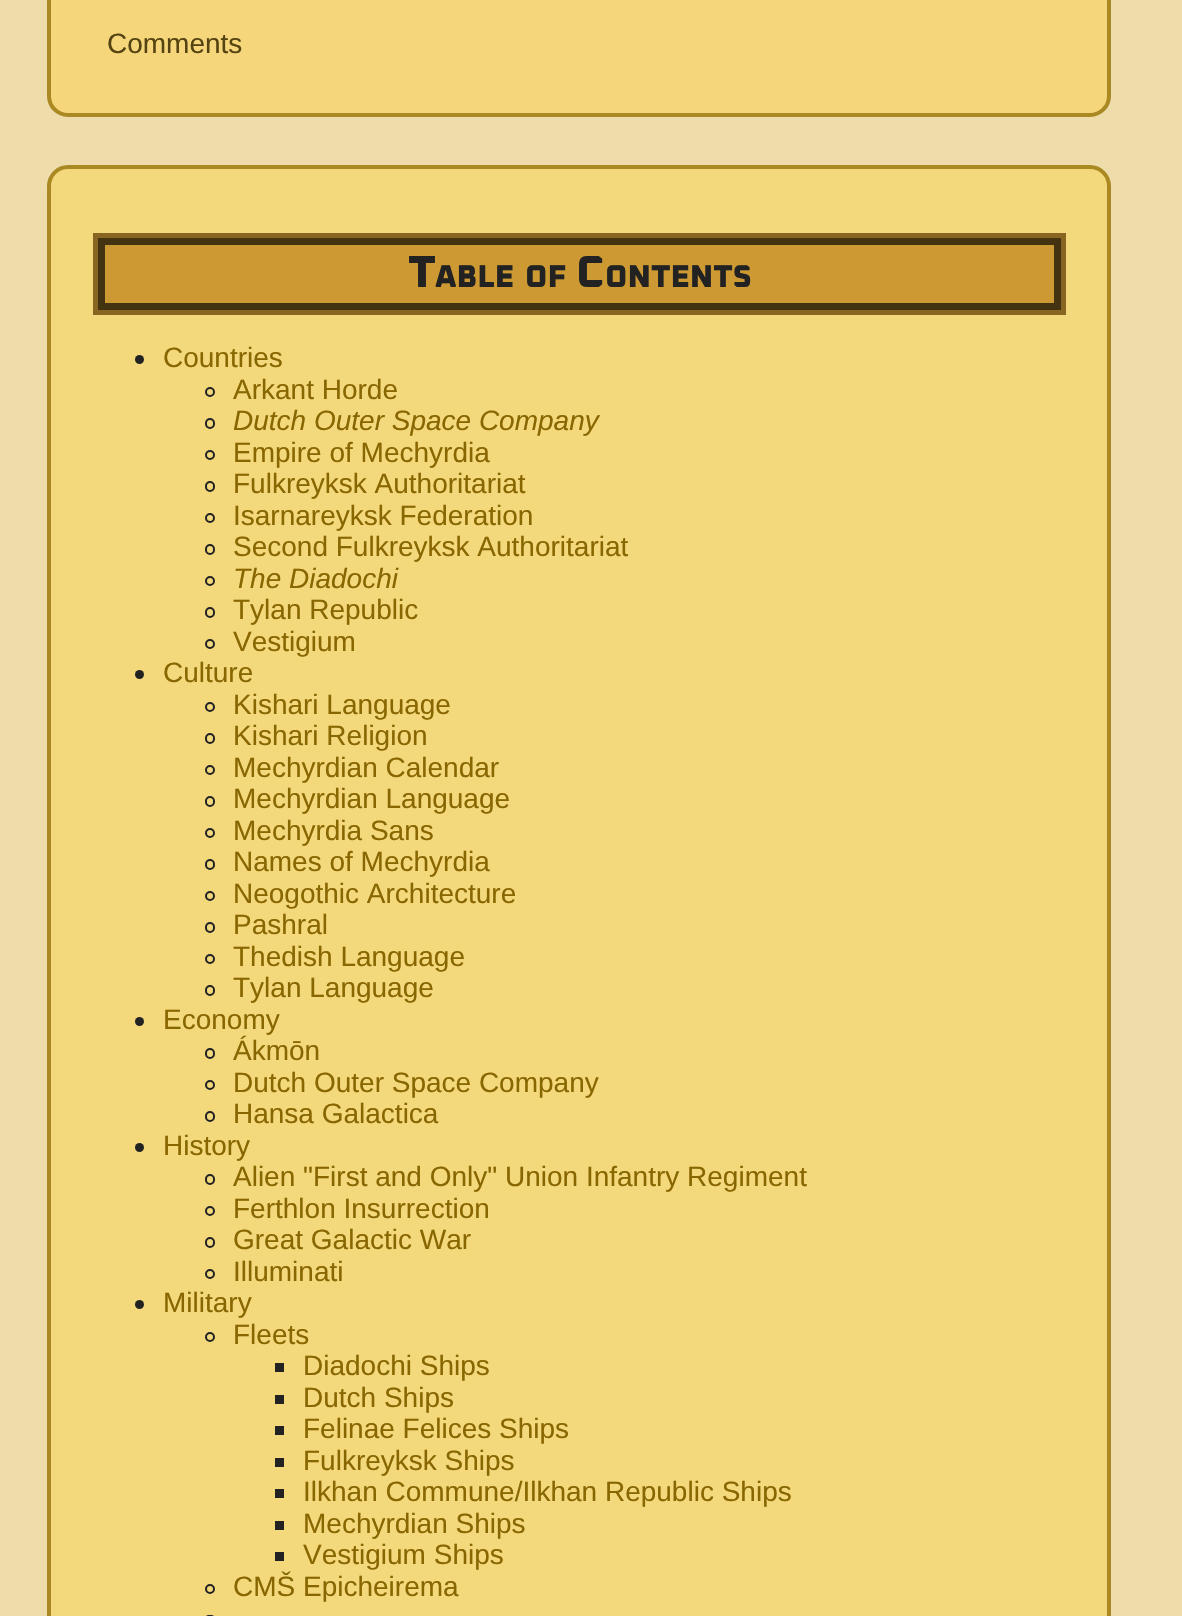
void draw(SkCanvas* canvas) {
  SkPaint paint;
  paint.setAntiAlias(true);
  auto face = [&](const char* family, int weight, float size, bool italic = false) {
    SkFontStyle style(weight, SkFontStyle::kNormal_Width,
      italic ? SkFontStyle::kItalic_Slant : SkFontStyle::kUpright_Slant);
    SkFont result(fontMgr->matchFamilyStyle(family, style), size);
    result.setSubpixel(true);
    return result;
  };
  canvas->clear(0xffeeddaa);
  paint.setColor(0xfff5d67a);
  canvas->drawRoundRect(SkRect::MakeXYWH(49, -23, 1060, 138), 19, 19, paint);
  paint.setStroke(true);
  paint.setStrokeWidth(4);
  paint.setColor(0xffaa8822);
  canvas->drawRoundRect(SkRect::MakeXYWH(49, -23, 1060, 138), 19, 19, paint);
  paint.setStroke(false);
  paint.setColor(0xfff3d87c);
  canvas->drawRoundRect(SkRect::MakeXYWH(49, 167, 1060, 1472), 19, 19, paint);
  paint.setStroke(true);
  paint.setColor(0xffaa8822);
  canvas->drawRoundRect(SkRect::MakeXYWH(49, 167, 1060, 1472), 19, 19, paint);
  paint.setStroke(false);
  paint.setColor(0xffcc9933);
  canvas->drawRect(SkRect::MakeXYWH(101.5f, 241.5f, 956, 65), paint);
  paint.setStroke(true);
  paint.setStrokeWidth(7);
  paint.setColor(0xff443311);
  canvas->drawRect(SkRect::MakeXYWH(101.5f, 241.5f, 956, 65), paint);
  paint.setStrokeWidth(5);
  paint.setColor(0xff886622);
  canvas->drawRect(SkRect::MakeXYWH(95.5f, 235.5f, 968, 77), paint);
  paint.setStroke(false);
  paint.setColor(0xff222222);
  canvas->drawCircle(139.5f, 359.5f, 4.5f, paint);
  paint.setStroke(true);
  paint.setStrokeWidth(2);
  canvas->drawCircle(210, 392, 4, paint);
  canvas->drawRoundRect(SkRect::MakeXYWH(206, 419, 8, 9), 4, 4, paint);
  canvas->drawCircle(210, 455, 4, paint);
  canvas->drawRoundRect(SkRect::MakeXYWH(206, 482, 8, 9), 4, 4, paint);
  canvas->drawCircle(210, 518, 4, paint);
  canvas->drawRoundRect(SkRect::MakeXYWH(206, 545, 8, 9), 4, 4, paint);
  canvas->drawCircle(210, 581, 4, paint);
  canvas->drawRoundRect(SkRect::MakeXYWH(206, 608, 8, 9), 4, 4, paint);
  canvas->drawCircle(210, 644, 4, paint);
  paint.setStroke(false);
  canvas->drawCircle(139.5f, 674.5f, 4.5f, paint);
  paint.setStroke(true);
  canvas->drawCircle(210, 707, 4, paint);
  canvas->drawRoundRect(SkRect::MakeXYWH(206, 734, 8, 9), 4, 4, paint);
  canvas->drawCircle(210, 770, 4, paint);
  canvas->drawRoundRect(SkRect::MakeXYWH(206, 797, 8, 9), 4, 4, paint);
  canvas->drawCircle(210, 833, 4, paint);
  canvas->drawRoundRect(SkRect::MakeXYWH(206, 860, 8, 9), 4, 4, paint);
  canvas->drawCircle(210, 896, 4, paint);
  canvas->drawRoundRect(SkRect::MakeXYWH(206, 923, 8, 9), 4, 4, paint);
  canvas->drawCircle(210, 959, 4, paint);
  canvas->drawRoundRect(SkRect::MakeXYWH(206, 986, 8, 9), 4, 4, paint);
  paint.setStroke(false);
  canvas->drawCircle(139.5f, 1021.5f, 4.5f, paint);
  paint.setStroke(true);
  canvas->drawRoundRect(SkRect::MakeXYWH(206, 1049, 8, 9), 4, 4, paint);
  canvas->drawCircle(210, 1085, 4, paint);
  canvas->drawRoundRect(SkRect::MakeXYWH(206, 1112, 8, 9), 4, 4, paint);
  paint.setStroke(false);
  canvas->drawCircle(139.5f, 1147.5f, 4.5f, paint);
  paint.setStroke(true);
  canvas->drawRoundRect(SkRect::MakeXYWH(206, 1175, 8, 9), 4, 4, paint);
  canvas->drawCircle(210, 1211, 4, paint);
  canvas->drawRoundRect(SkRect::MakeXYWH(206, 1238, 8, 9), 4, 4, paint);
  canvas->drawCircle(210, 1274, 4, paint);
  paint.setStroke(false);
  canvas->drawCircle(139.5f, 1304.5f, 4.5f, paint);
  paint.setStroke(true);
  canvas->drawCircle(210, 1337, 4, paint);
  paint.setStroke(false);
  {
    const struct { float x, y, w, h; SkColor color; } items[] = {
      {275, 1363, 9, 9, 0xff222222},
      {275, 1395, 9, 9, 0xff222222},
      {275, 1426, 9, 9, 0xff222222},
      {275, 1458, 9, 9, 0xff222222},
      {275, 1489, 9, 9, 0xff222222},
      {275, 1521, 9, 9, 0xff222222},
      {275, 1552, 9, 9, 0xff222222},
    };
    for (auto [x, y, w, h, color] : items) {
      paint.setColor(color);
      canvas->drawRect(SkRect::MakeXYWH(x, y, w, h), paint);
    }
  }
  paint.setStroke(true);
  canvas->drawCircle(210, 1589, 4, paint);
  canvas->drawRoundRect(SkRect::MakeXYWH(206, 1616, 8, 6), 4, 4, paint);
  auto f0 = face("Liberation Sans", 400, 28);
  paint.setStroke(false);
  paint.setColor(0xff554411);
  canvas->drawString("Comments", 107, 53, f0, paint);
  auto f1 = face("Oxanium", 800, 45);
  paint.setColor(0xff222222);
  canvas->drawString("T", 408, 287, f1, paint);
  auto f2 = face("Oxanium", 800, 31.5f);
  canvas->drawString("ABLE", 435, 287, f2, paint);
  canvas->drawString("OF", 525, 287, f2, paint);
  canvas->drawString("C", 576, 287, f1, paint);
  canvas->drawString("ONTENTS", 605, 287, f2, paint);
  paint.setColor(0xff886600);
  canvas->drawString("Countries", 163, 367, f0, paint);
  canvas->drawString("Arkant Horde", 233, 399, f0, paint);
  auto f3 = face("Liberation Sans", 400, 28, true);
  canvas->drawString("Dutch Outer Space Company", 233, 430, f3, paint);
  {
    const struct { const char* s; float x, y; } items[] = {
      {"Empire of Mechyrdia", 233, 462},
      {"Fulkreyksk Authoritariat", 233, 493},
      {"Isarnareyksk Federation", 233, 525},
      {"Second Fulkreyksk Authoritariat", 233, 556},
    };
    for (auto [s, x, y] : items) {
      canvas->drawString(s, x, y, f0, paint);
    }
  }
  canvas->drawString("The Diadochi", 233, 588, f3, paint);
  {
    const struct { const char* s; float x, y; } items[] = {
      {"Tylan Republic", 233, 619},
      {"Vestigium", 233, 651},
      {"Culture", 163, 682},
      {"Kishari Language", 233, 714},
      {"Kishari Religion", 233, 745},
      {"Mechyrdian Calendar", 233, 777},
      {"Mechyrdian Language", 233, 808},
      {"Mechyrdia Sans", 233, 840},
      {"Names of Mechyrdia", 233, 871},
      {"Neogothic Architecture", 233, 903},
      {"Pashral", 233, 934},
      {"Thedish Language", 233, 966},
      {"Tylan Language", 233, 997},
      {"Economy", 163, 1029},
      {"Ákmōn", 233, 1060},
      {"Dutch Outer Space Company", 233, 1092},
      {"Hansa Galactica", 233, 1123},
      {"History", 163, 1155},
      {"Alien \"First and Only\" Union Infantry Regiment", 233, 1186},
      {"Ferthlon Insurrection", 233, 1218},
      {"Great Galactic War", 233, 1249},
      {"Illuminati", 233, 1281},
      {"Military", 163, 1312},
      {"Fleets", 233, 1344},
      {"Diadochi Ships", 303, 1375},
      {"Dutch Ships", 303, 1407},
      {"Felinae Felices Ships", 303, 1438},
      {"Fulkreyksk Ships", 303, 1470},
      {"Ilkhan Commune/Ilkhan Republic Ships", 303, 1501},
      {"Mechyrdian Ships", 303, 1533},
      {"Vestigium Ships", 303, 1564},
      {"CMŠ Epicheirema", 233, 1596},
    };
    for (auto [s, x, y] : items) {
      canvas->drawString(s, x, y, f0, paint);
    }
  }
}
